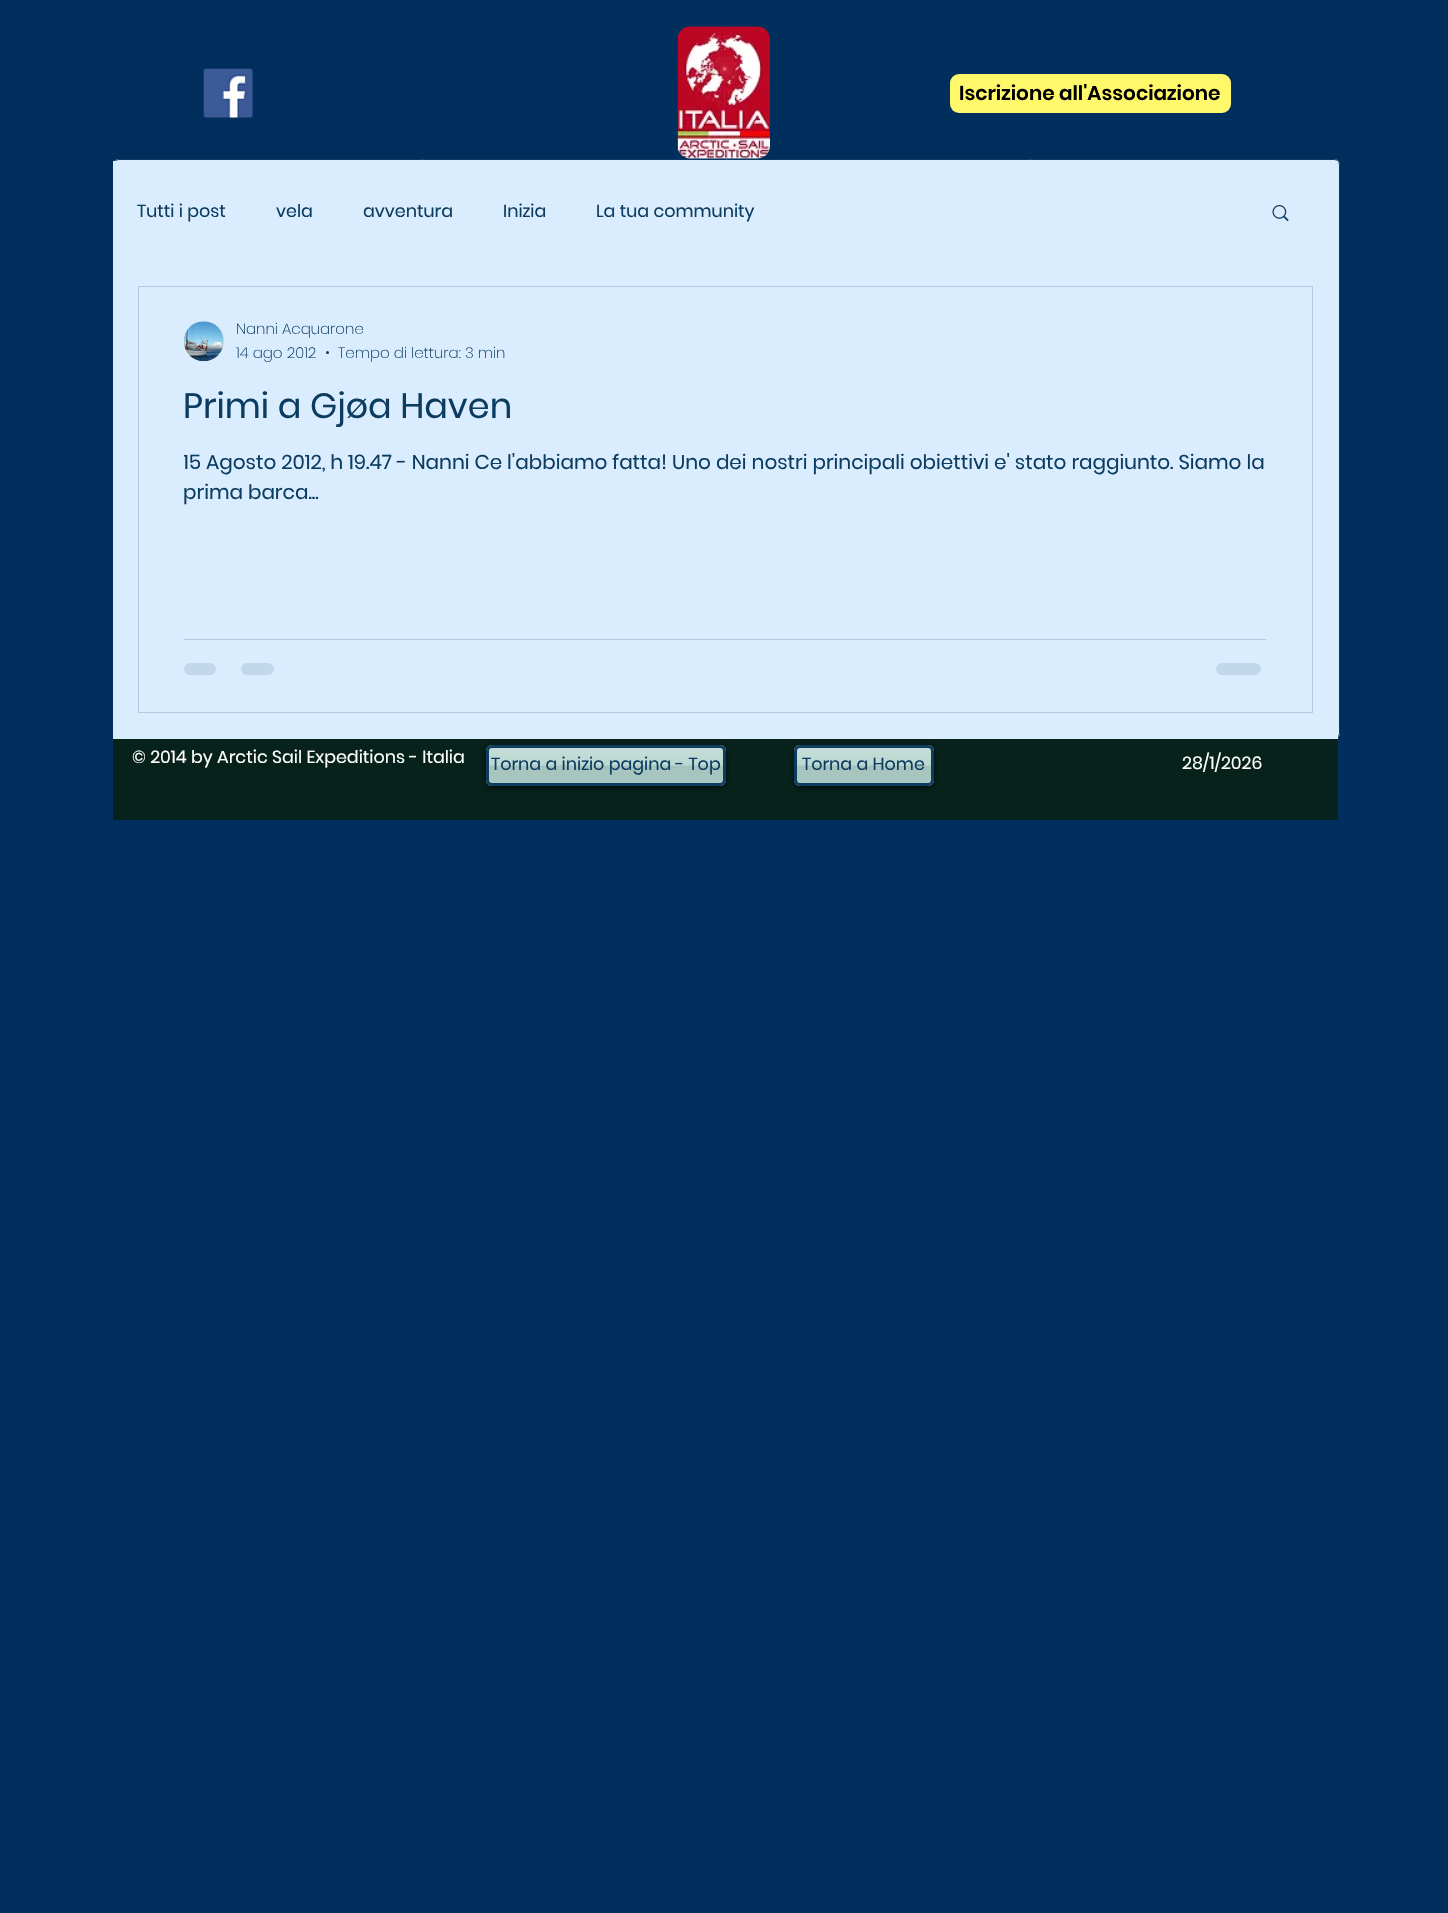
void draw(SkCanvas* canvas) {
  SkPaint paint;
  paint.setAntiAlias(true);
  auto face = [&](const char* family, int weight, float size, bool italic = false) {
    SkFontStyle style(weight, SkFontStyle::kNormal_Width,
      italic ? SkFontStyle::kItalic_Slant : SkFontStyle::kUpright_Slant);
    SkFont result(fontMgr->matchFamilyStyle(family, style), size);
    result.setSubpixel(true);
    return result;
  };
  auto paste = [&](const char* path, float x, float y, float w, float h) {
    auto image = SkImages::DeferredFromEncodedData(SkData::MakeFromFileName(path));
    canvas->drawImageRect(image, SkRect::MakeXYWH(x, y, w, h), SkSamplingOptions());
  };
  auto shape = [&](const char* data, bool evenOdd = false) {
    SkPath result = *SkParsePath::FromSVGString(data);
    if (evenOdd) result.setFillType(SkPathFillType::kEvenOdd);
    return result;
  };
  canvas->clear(0xff002e5d);
  paste("img/1.png", 203, 68, 50, 50);
  paste("img/2.png", 677, 26, 93, 133);
  paint.setColor(0xfffff86b);
  canvas->drawRoundRect(SkRect::MakeXYWH(950, 74, 281, 39), 9, 9, paint);
  paint.setColor(0xffdaedff);
  canvas->drawRoundRect(SkRect::MakeXYWH(113, 159, 1227, 580), 6, 6, paint);
  paint.setColor(0xfff6fbff);
  canvas->drawPath(shape("M114 731V733C114 736 116 738 119 738H1334C1337 738 1339 736 1339 733V731C1339 734 1337 736 1334 736H119C116 736 114 734 114 731Z"), paint);
  paint.setStroke(true);
  paint.setStrokeWidth(1);
  paint.setColor(0xff0c3c60);
  canvas->drawRoundRect(SkRect::MakeXYWH(113.5f, 159.5f, 1226, 579), 5.5f, 5.5f, paint);
  paint.setStroke(false);
  paint.setColor(0xffdaedff);
  canvas->drawRect(SkRect::MakeXYWH(113, 161, 1225, 578), paint);
  paste("img/3.png", 1272, 205, 17, 17);
  paint.setStroke(true);
  paint.setColor(0xffafcbe0);
  canvas->drawRect(SkRect::MakeXYWH(138.5f, 286.5f, 1174, 426), paint);
  paste("img/4.png", 183, 321, 41, 41);
  paint.setStroke(false);
  paint.setColor(0xff0c3c60);
  canvas->drawCircle(327.5f, 352.5f, 1.5f, paint);
  paint.setColor(0xffb1cadf);
  canvas->drawRect(SkRect::MakeXYWH(184, 639, 1082, 1), paint);
  paint.setColor(0xffc1d8ec);
  canvas->drawRoundRect(SkRect::MakeXYWH(184, 663, 32, 12), 6, 6, paint);
  canvas->drawRoundRect(SkRect::MakeXYWH(241, 663, 33, 12), 6, 6, paint);
  canvas->drawRoundRect(SkRect::MakeXYWH(1216, 663, 45, 12), 6, 6, paint);
  paint.setColor(0xff07211b);
  canvas->drawRect(SkRect::MakeXYWH(113, 739, 1225, 81), paint);
  paint.setColor(0x99000000);
  paint.setMaskFilter(SkMaskFilter::MakeBlur(kNormal_SkBlurStyle, 2.5f));
  canvas->drawRoundRect(SkRect::MakeXYWH(486, 746, 240, 42), 6, 6, paint);
  paint.setMaskFilter(nullptr);
  paint.setColor(0xffb2d2cb);
  canvas->drawRoundRect(SkRect::MakeXYWH(486, 745, 240, 41), 6, 6, paint);
  paste("img/5.png", 486, 745, 240, 41);
  paint.setStroke(true);
  paint.setStrokeWidth(3);
  paint.setColor(0xff0c3c60);
  canvas->drawRoundRect(SkRect::MakeXYWH(487.5f, 746.5f, 237, 38), 4.5f, 4.5f, paint);
  paint.setStroke(false);
  paint.setColor(0x99000000);
  paint.setMaskFilter(SkMaskFilter::MakeBlur(kNormal_SkBlurStyle, 2.5f));
  canvas->drawRoundRect(SkRect::MakeXYWH(794, 746, 140, 42), 6, 6, paint);
  paint.setMaskFilter(nullptr);
  paint.setColor(0xffb2d2cb);
  canvas->drawRoundRect(SkRect::MakeXYWH(794, 745, 140, 41), 6, 6, paint);
  paste("img/6.png", 794, 745, 140, 41);
  paint.setStroke(true);
  paint.setColor(0xff0c3c60);
  canvas->drawRoundRect(SkRect::MakeXYWH(795.5f, 746.5f, 137, 38), 4.5f, 4.5f, paint);
  auto f0 = face("Poppins", 600, 20);
  paint.setStroke(false);
  paint.setColor(0xff000000);
  canvas->drawString("Iscrizione all'Associazione", 959, 100, f0, paint);
  auto f1 = face("Poppins", 400, 17.5f);
  paint.setColor(0xff0c3c60);
  {
    const struct { const char* s; float x, y; } items[] = {
      {"Tutti i post", 137, 217},
      {"vela", 276, 217},
      {"avventura", 363, 217},
      {"Inizia", 503, 217},
      {"La tua community", 596, 217},
    };
    for (auto [s, x, y] : items) {
      canvas->drawString(s, x, y, f1, paint);
    }
  }
  auto f2 = face("Poppins", 200, 15);
  {
    const struct { const char* s; float x, y; } items[] = {
      {"Nanni Acquarone", 236, 334},
      {"14 ago 2012", 236, 358},
      {"Tempo di lettura: 3 min", 338, 358},
    };
    for (auto [s, x, y] : items) {
      canvas->drawString(s, x, y, f2, paint);
    }
  }
  auto f3 = face("Poppins", 400, 35);
  canvas->drawString("Primi a Gjøa Haven", 183, 418, f3, paint);
  canvas->save();
  canvas->clipRect(SkRect::MakeXYWH(184, 448, 1082, 60));
  auto f4 = face("Poppins", 400, 20);
  canvas->drawString("15 Agosto 2012, h 19.47 - Nanni Ce l'abbiamo fatta!", 183, 469, f4, paint);
  canvas->restore();
  canvas->drawString("Uno dei nostri principali obiettivi e' stato raggiunto. Siamo la", 672, 469, f4, paint);
  canvas->drawString("prima barca...", 183, 499, f4, paint);
  paint.setColor(0xffffffff);
  canvas->drawString("© 2014 by Arctic Sail Expeditions - Italia", 132, 763, f1, paint);
  paint.setColor(0xff0c3c60);
  canvas->drawString("Torna a inizio pagina - Top", 491, 770, f1, paint);
  canvas->drawString("Torna a Home", 802, 770, f1, paint);
  paint.setColor(0xffffffff);
  canvas->drawString("28/1/2026", 1182, 769, f1, paint);
}
